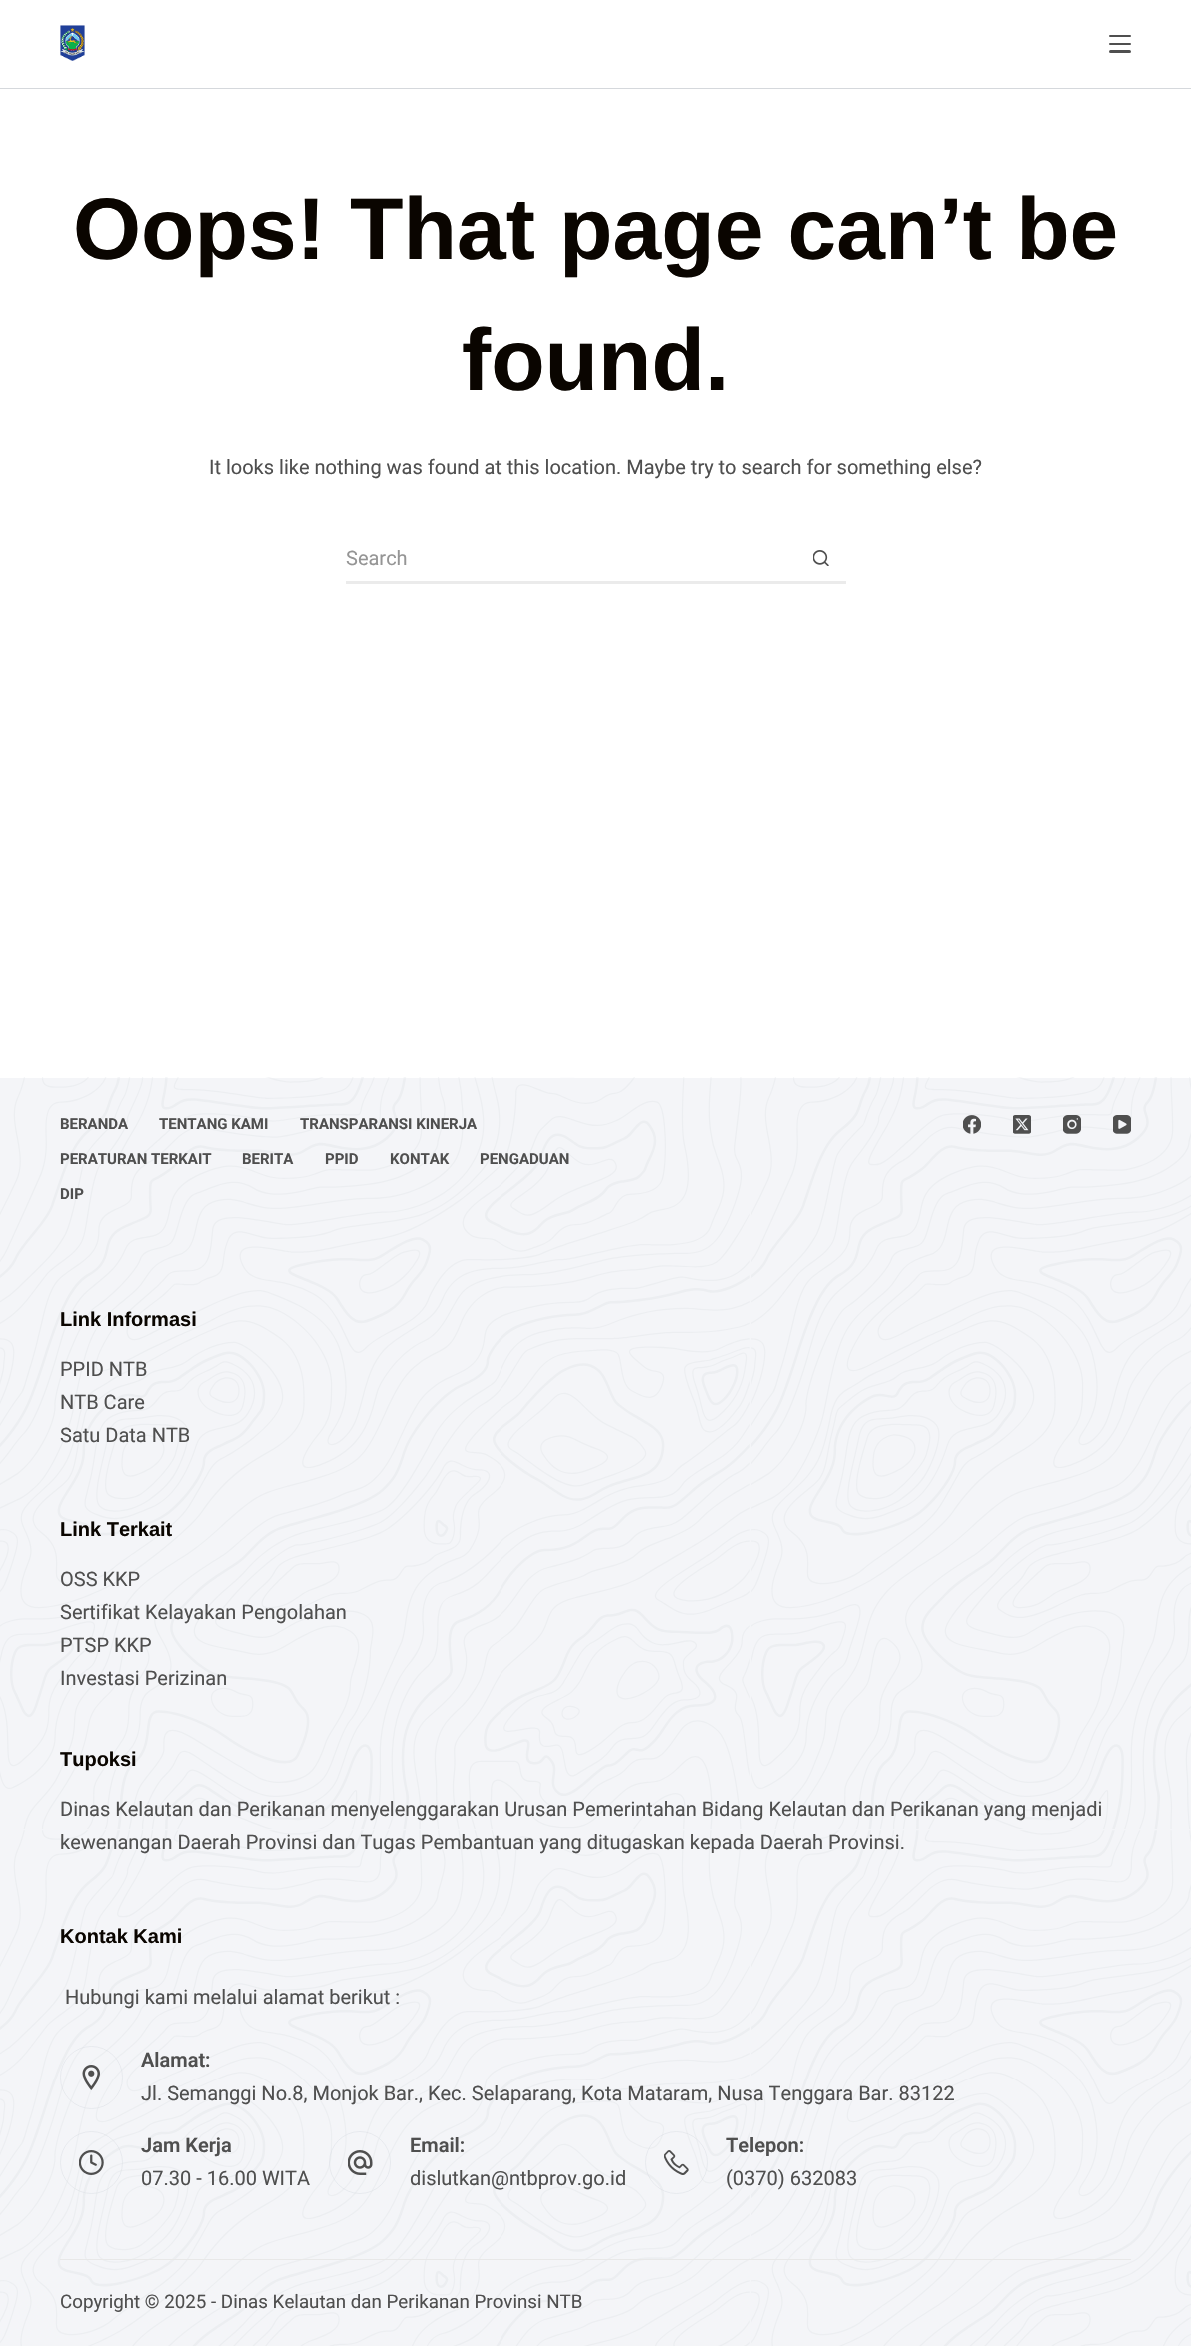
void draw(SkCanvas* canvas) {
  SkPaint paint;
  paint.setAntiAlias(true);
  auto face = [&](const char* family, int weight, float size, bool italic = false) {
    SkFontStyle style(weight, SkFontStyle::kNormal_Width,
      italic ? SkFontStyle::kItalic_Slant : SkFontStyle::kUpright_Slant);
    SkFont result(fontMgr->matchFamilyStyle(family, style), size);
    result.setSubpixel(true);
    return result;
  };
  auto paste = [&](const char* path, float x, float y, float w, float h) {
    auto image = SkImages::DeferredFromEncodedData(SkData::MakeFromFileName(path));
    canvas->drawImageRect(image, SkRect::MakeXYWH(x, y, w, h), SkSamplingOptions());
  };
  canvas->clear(0xffffffff);
  paint.setColor(0xffd5d8dc);
  canvas->drawRect(SkRect::MakeXYWH(0, 88, 1191, 1), paint);
  paste("img/1.png", 60, 25, 25, 36);
  paint.setColor(0xff4f4f4f);
  canvas->drawRoundRect(SkRect::MakeXYWH(1109, 35, 22, 2), 1, 1, paint);
  canvas->drawRoundRect(SkRect::MakeXYWH(1109, 43, 22, 2), 1, 1, paint);
  canvas->drawRoundRect(SkRect::MakeXYWH(1109, 50, 22, 3), 1.5f, 1.5f, paint);
  paint.setColor(0xffebebeb);
  canvas->drawRect(SkRect::MakeXYWH(346, 581, 500, 3), paint);
  paste("img/2.png", 813, 550, 16, 16);
  paint.setColor(0xfff4f5f8);
  canvas->drawRect(SkRect::MakeXYWH(0, 1078, 1191, 1268), paint);
  paste("img/3.png", 0, 1077, 1191, 1269);
  paste("img/4.png", 963, 1115, 18, 19);
  paste("img/5.png", 1013, 1115, 18, 19);
  paste("img/6.png", 1063, 1115, 18, 19);
  paste("img/7.png", 1113, 1115, 18, 19);
  paint.setStroke(true);
  paint.setStrokeWidth(1);
  paint.setColor(0x80dadee4);
  canvas->drawCircle(91.5f, 2077.5f, 31, paint);
  paste("img/8.png", 82, 2065, 18, 25);
  canvas->drawCircle(91.5f, 2162.5f, 31, paint);
  paste("img/9.png", 79, 2150, 25, 25);
  canvas->drawRoundRect(SkRect::MakeXYWH(329.5f, 2131.5f, 61, 62), 30.5f, 30.5f, paint);
  paste("img/10.png", 348, 2150, 25, 25);
  canvas->drawCircle(676.5f, 2162.5f, 31, paint);
  paste("img/11.png", 664, 2150, 25, 25);
  paint.setStroke(false);
  paint.setColor(0xffe8e8e8);
  canvas->drawRect(SkRect::MakeXYWH(60, 2259, 1071, 1), paint);
  auto f0 = face("Liberation Sans", 700, 87.5f);
  paint.setColor(0xff0a0500);
  canvas->drawString("Oops! That page can’t be", 73, 259, f0, paint);
  canvas->drawString("found.", 462, 390, f0, paint);
  auto f1 = face("Roboto", 400, 20);
  paint.setColor(0xff4f4f4f);
  canvas->drawString("It looks like nothing was found at this location. Maybe try to search for something else?", 209, 474, f1, paint);
  paint.setColor(0xff959595);
  canvas->drawString("Search", 346, 565, f1, paint);
  auto f2 = face("Roboto", 700, 15);
  paint.setColor(0xff4f4f4f);
  {
    const struct { const char* s; float x, y; } items[] = {
      {"BERANDA", 60, 1129},
      {"TENTANG KAMI", 159, 1129},
      {"TRANSPARANSI KINERJA", 300, 1129},
      {"PERATURAN TERKAIT", 60, 1164},
      {"BERITA", 242, 1164},
      {"PPID", 325, 1164},
      {"KONTAK", 390, 1164},
      {"PENGADUAN", 480, 1164},
      {"DIP", 60, 1199},
    };
    for (auto [s, x, y] : items) {
      canvas->drawString(s, x, y, f2, paint);
    }
  }
  auto f3 = face("Liberation Sans", 700, 20);
  paint.setColor(0xff0a0500);
  canvas->drawString("Link Informasi", 60, 1326, f3, paint);
  paint.setColor(0xff4f4f4f);
  {
    const struct { const char* s; float x, y; } items[] = {
      {"PPID NTB", 60, 1376},
      {"NTB Care", 60, 1409},
      {"Satu Data NTB", 60, 1442},
    };
    for (auto [s, x, y] : items) {
      canvas->drawString(s, x, y, f1, paint);
    }
  }
  paint.setColor(0xff0a0500);
  canvas->drawString("Link Terkait", 60, 1536, f3, paint);
  paint.setColor(0xff4f4f4f);
  {
    const struct { const char* s; float x, y; } items[] = {
      {"OSS KKP", 60, 1586},
      {"Sertifikat Kelayakan Pengolahan", 60, 1619},
      {"PTSP KKP", 60, 1652},
      {"Investasi Perizinan", 60, 1685},
    };
    for (auto [s, x, y] : items) {
      canvas->drawString(s, x, y, f1, paint);
    }
  }
  paint.setColor(0xff0a0500);
  canvas->drawString("Tupoksi", 60, 1766, f3, paint);
  paint.setColor(0xff4f4f4f);
  canvas->drawString("Dinas Kelautan dan Perikanan menyelenggarakan Urusan Pemerintahan Bidang Kelautan dan Perikanan yang menjadi", 60, 1816, f1, paint);
  canvas->drawString("kewenangan Daerah Provinsi dan Tugas Pembantuan yang ditugaskan kepada Daerah Provinsi.", 60, 1849, f1, paint);
  paint.setColor(0xff0a0500);
  canvas->drawString("Kontak Kami", 60, 1943, f3, paint);
  paint.setColor(0xff4f4f4f);
  canvas->drawString("Hubungi kami melalui alamat berikut :", 65, 2004, f1, paint);
  auto f4 = face("Roboto", 600, 20);
  canvas->drawString("Alamat:", 141, 2067, f4, paint);
  canvas->drawString("Jl. Semanggi No.8, Monjok Bar., Kec. Selaparang, Kota Mataram, Nusa Tenggara Bar. 83122", 141, 2100, f1, paint);
  canvas->drawString("Jam Kerja", 141, 2152, f4, paint);
  canvas->drawString("07.30 - 16.00 WITA", 141, 2185, f1, paint);
  canvas->drawString("Email:", 410, 2152, f4, paint);
  canvas->drawString("dislutkan@ntbprov.go.id", 410, 2185, f1, paint);
  canvas->drawString("Telepon:", 726, 2152, f4, paint);
  canvas->drawString("(0370) 632083", 726, 2185, f1, paint);
  auto f5 = face("Roboto", 400, 18.75f);
  canvas->drawString("Copyright © 2025 - Dinas Kelautan dan Perikanan Provinsi NTB", 60, 2308, f5, paint);
}
